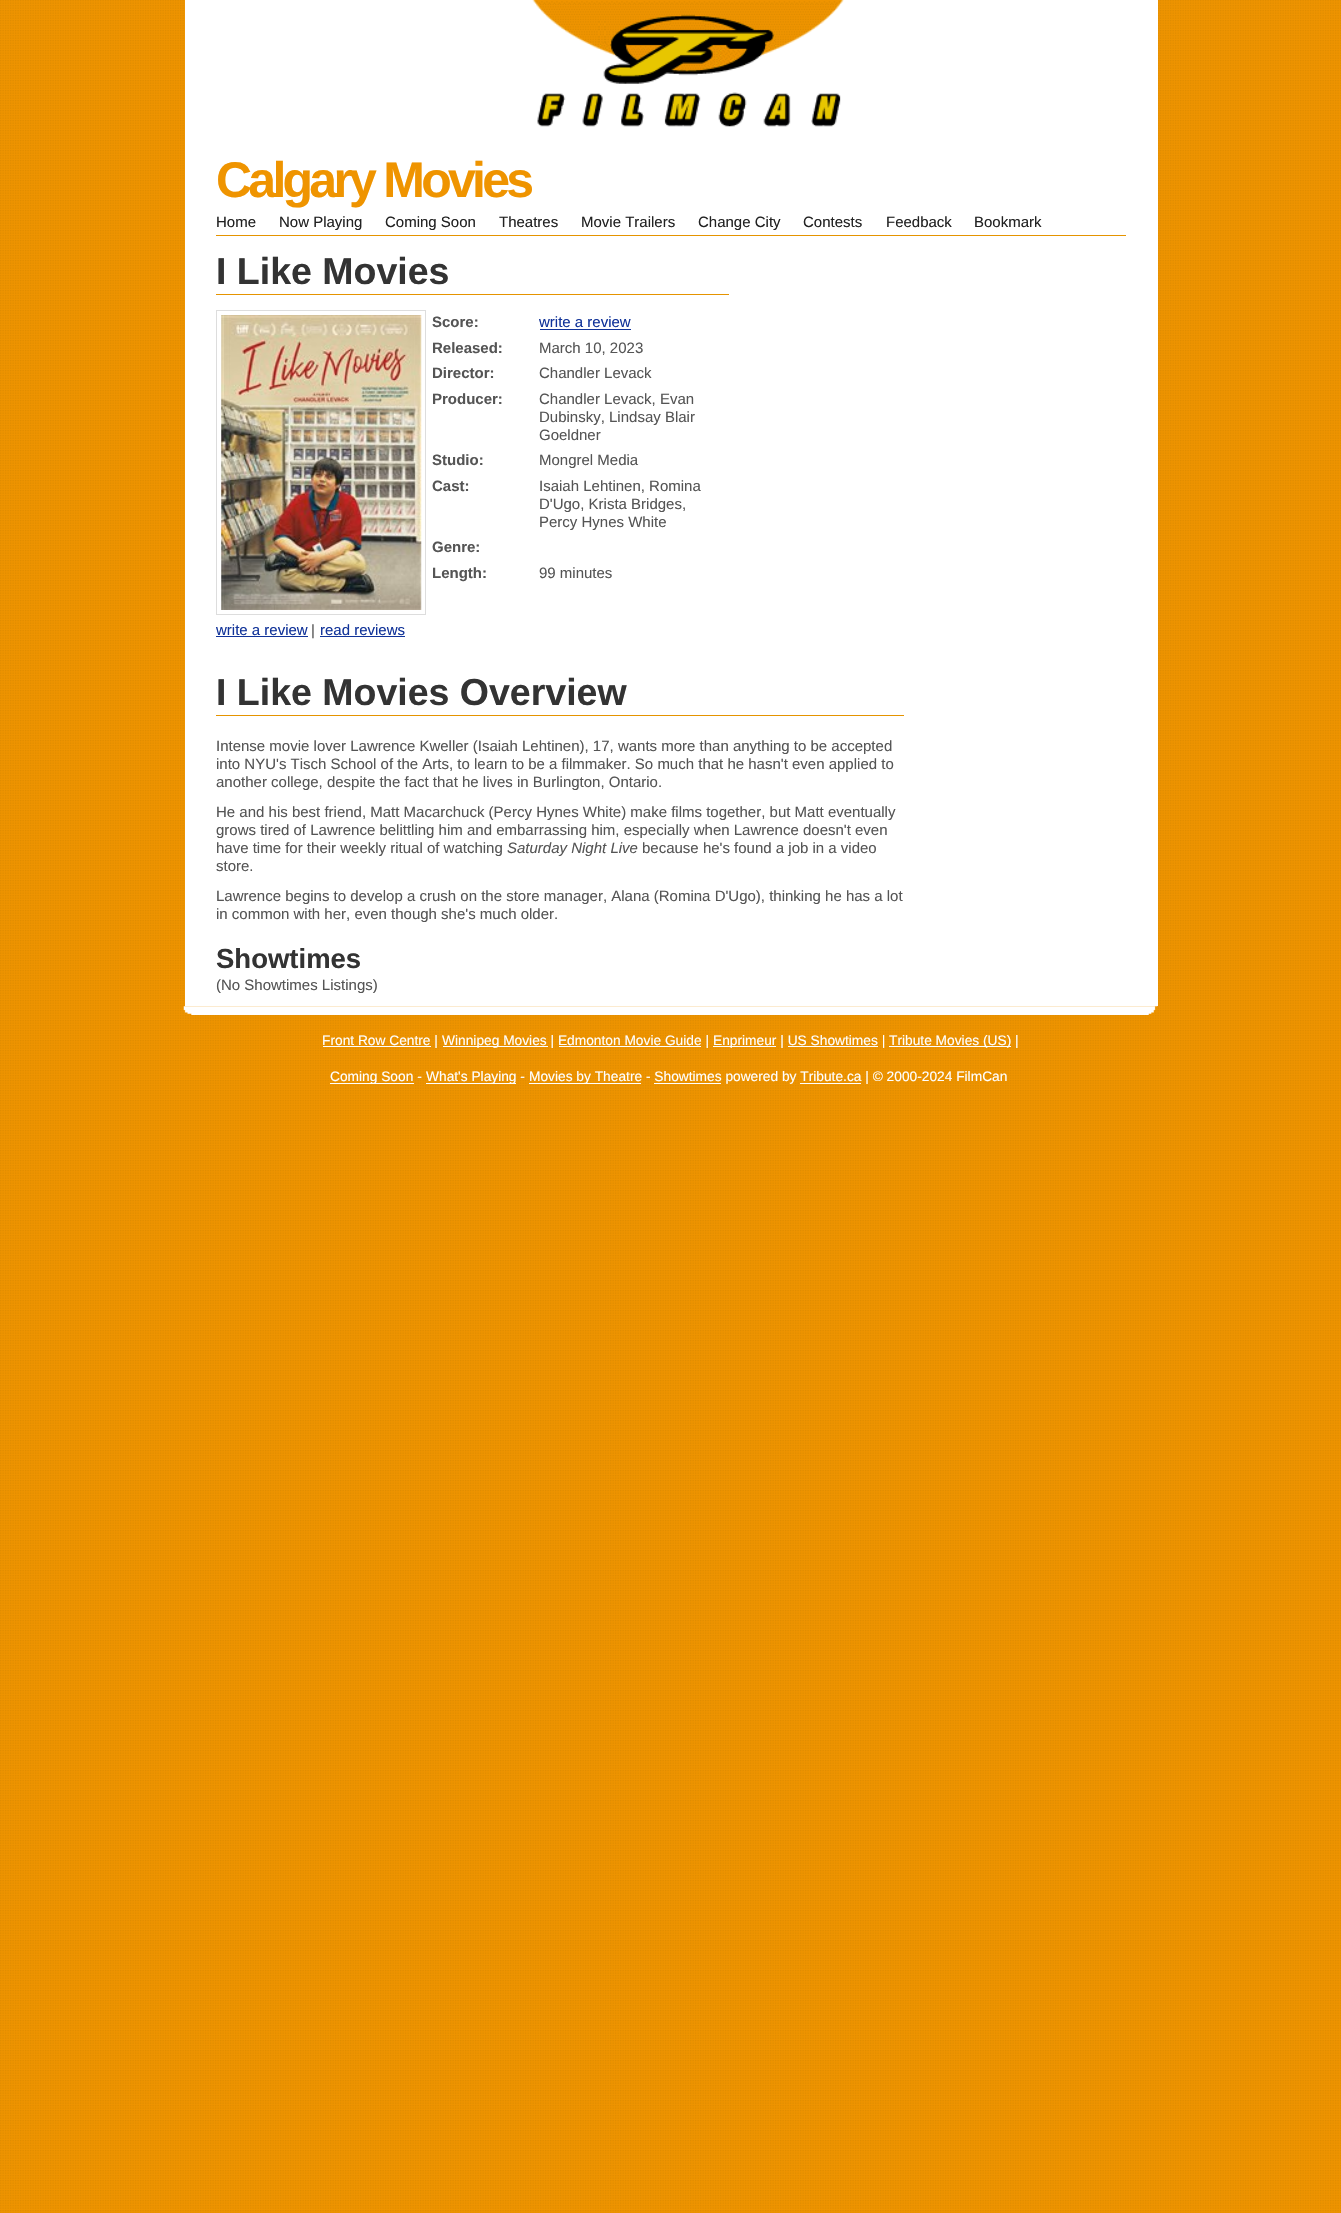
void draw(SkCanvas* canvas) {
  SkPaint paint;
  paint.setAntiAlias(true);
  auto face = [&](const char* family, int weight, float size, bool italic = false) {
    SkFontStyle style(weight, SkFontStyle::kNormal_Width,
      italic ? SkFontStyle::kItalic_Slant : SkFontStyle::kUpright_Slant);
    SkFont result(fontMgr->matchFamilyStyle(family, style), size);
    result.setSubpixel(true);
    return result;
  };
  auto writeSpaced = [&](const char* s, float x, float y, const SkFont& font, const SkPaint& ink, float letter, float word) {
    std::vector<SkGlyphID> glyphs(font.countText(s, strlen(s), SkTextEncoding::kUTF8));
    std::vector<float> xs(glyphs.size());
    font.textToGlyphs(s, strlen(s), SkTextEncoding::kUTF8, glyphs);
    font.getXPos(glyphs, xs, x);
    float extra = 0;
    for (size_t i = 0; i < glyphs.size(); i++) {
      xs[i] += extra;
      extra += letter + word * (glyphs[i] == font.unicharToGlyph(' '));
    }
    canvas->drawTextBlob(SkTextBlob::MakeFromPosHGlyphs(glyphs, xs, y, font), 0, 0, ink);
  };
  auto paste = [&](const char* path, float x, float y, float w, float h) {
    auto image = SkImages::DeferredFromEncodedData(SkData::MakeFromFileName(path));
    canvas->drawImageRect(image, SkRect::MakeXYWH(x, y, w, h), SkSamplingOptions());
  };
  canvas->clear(0xffffffff);
  paste("img/1.png", 0, 0, 1341, 2213);
  paint.setColor(0xffffffff);
  canvas->drawRect(SkRect::MakeXYWH(185, 0, 973, 1006), paint);
  paste("img/2.png", 532, 0, 312, 127);
  paste("img/3.png", 185, 1006, 973, 1);
  paint.setColor(0xffe59400);
  canvas->drawRect(SkRect::MakeXYWH(216, 235, 910, 1), paint);
  canvas->drawRect(SkRect::MakeXYWH(216, 294, 513, 1), paint);
  paint.setStroke(true);
  paint.setStrokeWidth(1);
  paint.setColor(0xffdddddd);
  canvas->drawRect(SkRect::MakeXYWH(216.5f, 310.5f, 209, 304), paint);
  paste("img/4.png", 221, 315, 201, 295);
  paint.setStroke(false);
  {
    const struct { float x, y, w, h; SkColor color; } items[] = {
      {540, 329, 91, 1, 0xff113399},
      {216, 636, 92, 1, 0xff113399},
      {320, 636, 85, 1, 0xff113399},
      {216, 715, 688, 1, 0xffe59400},
    };
    for (auto [x, y, w, h, color] : items) {
      paint.setColor(color);
      canvas->drawRect(SkRect::MakeXYWH(x, y, w, h), paint);
    }
  }
  paste("img/5.png", 183, 1006, 973, 9);
  {
    const struct { float x, y, w, h; SkColor color; } items[] = {
      {323, 1046, 108, 1, 0xffffffff},
      {443, 1046, 105, 1, 0xffffffff},
      {713, 1046, 63, 1, 0xffffffff},
      {889, 1046, 122, 1, 0xffffffff},
      {559, 1046, 142, 1, 0xffffffff},
      {788, 1046, 90, 1, 0xffffffff},
      {330, 1083, 84, 1, 0xffffffff},
      {426, 1083, 90, 1, 0xffffffff},
      {529, 1083, 112, 1, 0xffffffff},
      {654, 1083, 67, 1, 0xffffffff},
      {800, 1083, 61, 1, 0xffffffff},
    };
    for (auto [x, y, w, h, color] : items) {
      paint.setColor(color);
      canvas->drawRect(SkRect::MakeXYWH(x, y, w, h), paint);
    }
  }
  auto f0 = face("Liberation Sans", 700, 50);
  paint.setColor(0xffef9400);
  writeSpaced("Calgary Movies", 216, 197, f0, paint, -3.75f, 0);
  auto f1 = face("Liberation Sans", 400, 15);
  paint.setColor(0xff222222);
  {
    const struct { const char* s; float x, y; } items[] = {
      {"Home", 216, 227},
      {"Now Playing", 279, 227},
      {"Coming Soon", 385, 227},
      {"Theatres", 499, 227},
      {"Movie Trailers", 581, 227},
      {"Change City", 698, 227},
      {"Contests", 803, 227},
      {"Feedback", 886, 227},
      {"Bookmark", 974, 227},
    };
    for (auto [s, x, y] : items) {
      canvas->drawString(s, x, y, f1, paint);
    }
  }
  auto f2 = face("Liberation Sans", 700, 37.5f);
  paint.setColor(0xff333333);
  canvas->drawString("I Like Movies", 216, 284, f2, paint);
  auto f3 = face("Liberation Sans", 700, 15);
  paint.setColor(0xff555555);
  canvas->drawString("Score:", 432, 327, f3, paint);
  paint.setColor(0xff113399);
  canvas->drawString("write a review", 539, 327, f1, paint);
  paint.setColor(0xff555555);
  canvas->drawString("Released:", 432, 353, f3, paint);
  canvas->drawString("March 10, 2023", 539, 353, f1, paint);
  canvas->drawString("Director:", 432, 378, f3, paint);
  canvas->drawString("Chandler Levack", 539, 378, f1, paint);
  canvas->drawString("Producer:", 432, 404, f3, paint);
  {
    const struct { const char* s; float x, y; } items[] = {
      {"Chandler Levack, Evan", 539, 404},
      {"Dubinsky, Lindsay Blair", 539, 422},
      {"Goeldner", 539, 440},
    };
    for (auto [s, x, y] : items) {
      canvas->drawString(s, x, y, f1, paint);
    }
  }
  canvas->drawString("Studio:", 432, 465, f3, paint);
  canvas->drawString("Mongrel Media", 539, 465, f1, paint);
  canvas->drawString("Cast:", 432, 491, f3, paint);
  {
    const struct { const char* s; float x, y; } items[] = {
      {"Isaiah Lehtinen, Romina", 539, 491},
      {"D'Ugo, Krista Bridges,", 539, 509},
      {"Percy Hynes White", 539, 527},
    };
    for (auto [s, x, y] : items) {
      canvas->drawString(s, x, y, f1, paint);
    }
  }
  canvas->drawString("Genre:", 432, 552, f3, paint);
  canvas->drawString("Length:", 432, 578, f3, paint);
  canvas->drawString("99 minutes", 539, 578, f1, paint);
  paint.setColor(0xff113399);
  canvas->drawString("write a review", 216, 635, f1, paint);
  paint.setColor(0xff555555);
  canvas->drawString("|", 311, 635, f1, paint);
  paint.setColor(0xff113399);
  canvas->drawString("read reviews", 320, 635, f1, paint);
  paint.setColor(0xff333333);
  canvas->drawString("I Like Movies Overview", 216, 705, f2, paint);
  paint.setColor(0xff555555);
  {
    const struct { const char* s; float x, y; } items[] = {
      {"Intense movie lover Lawrence Kweller (Isaiah Lehtinen), 17, wants more than anything to be accepted", 216, 751},
      {"into NYU's Tisch School of the Arts, to learn to be a filmmaker. So much that he hasn't even applied to", 216, 769},
      {"another college, despite the fact that he lives in Burlington, Ontario.", 216, 787},
      {"He and his best friend, Matt Macarchuck (Percy Hynes White) make films together, but Matt eventually", 216, 817},
      {"grows tired of Lawrence belittling him and embarrassing him, especially when Lawrence doesn't even", 216, 835},
      {"have time for their weekly ritual of watching", 216, 853},
    };
    for (auto [s, x, y] : items) {
      canvas->drawString(s, x, y, f1, paint);
    }
  }
  auto f4 = face("Liberation Sans", 400, 15, true);
  canvas->drawString("Saturday Night Live", 507, 853, f4, paint);
  {
    const struct { const char* s; float x, y; } items[] = {
      {"because he's found a job in a video", 642, 853},
      {"store.", 216, 871},
      {"Lawrence begins to develop a crush on the store manager, Alana (Romina D'Ugo), thinking he has a lot", 216, 901},
      {"in common with her, even though she's much older.", 216, 919},
    };
    for (auto [s, x, y] : items) {
      canvas->drawString(s, x, y, f1, paint);
    }
  }
  auto f5 = face("Liberation Sans", 700, 27.5f);
  paint.setColor(0xff333333);
  canvas->drawString("Showtimes", 216, 968, f5, paint);
  paint.setColor(0xff555555);
  canvas->drawString("(No Showtimes Listings)", 216, 990, f1, paint);
  auto f6 = face("Liberation Sans", 400, 13.75f);
  paint.setColor(0xffffffff);
  {
    const struct { const char* s; float x, y; } items[] = {
      {"Front Row Centre |", 322, 1045},
      {"Winnipeg Movies | Edmonton Movie Guide |", 442, 1045},
      {"Enprimeur | US Showtimes |", 713, 1045},
      {"Tribute Movies (US) |", 889, 1045},
      {"Coming Soon -", 330, 1081},
      {"What's Playing -", 426, 1081},
      {"Movies by Theatre - Showtimes powered by Tribute.ca | © 2000-2024 FilmCan", 529, 1081},
    };
    for (auto [s, x, y] : items) {
      canvas->drawString(s, x, y, f6, paint);
    }
  }
}
